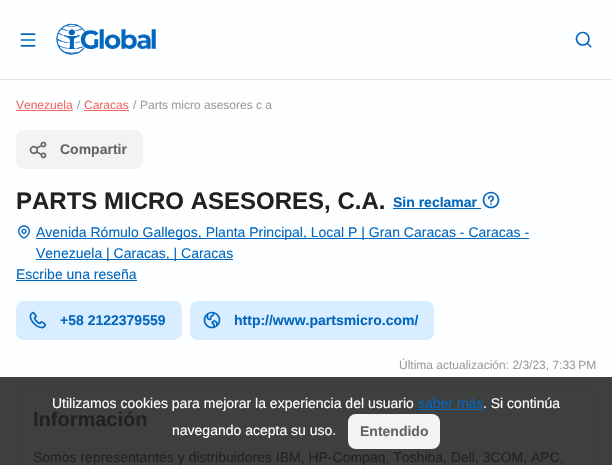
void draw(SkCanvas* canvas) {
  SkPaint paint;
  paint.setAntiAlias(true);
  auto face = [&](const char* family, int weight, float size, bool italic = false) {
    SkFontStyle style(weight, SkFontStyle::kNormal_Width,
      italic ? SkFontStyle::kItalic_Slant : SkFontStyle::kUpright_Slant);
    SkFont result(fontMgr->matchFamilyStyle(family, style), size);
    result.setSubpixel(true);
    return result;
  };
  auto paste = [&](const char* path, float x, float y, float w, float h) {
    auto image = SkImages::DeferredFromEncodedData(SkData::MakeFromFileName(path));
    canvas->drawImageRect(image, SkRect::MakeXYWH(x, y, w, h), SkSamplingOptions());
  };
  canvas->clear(0xfffcfeff);
  paint.setColor(0xff3e3f3f);
  canvas->drawRect(SkRect::MakeXYWH(0, 377, 612, 88), paint);
  paint.setColor(0xffe1e1e5);
  canvas->drawRect(SkRect::MakeXYWH(0, 79, 612, 1), paint);
  paste("img/1.png", 20, 33, 16, 14);
  paste("img/2.png", 56, 23, 100, 32);
  paste("img/3.png", 575, 31, 17, 17);
  paint.setColor(0xfff16862);
  canvas->drawRect(SkRect::MakeXYWH(16, 110, 57, 1), paint);
  canvas->drawRect(SkRect::MakeXYWH(84, 110, 45, 1), paint);
  paint.setColor(0xfff3f3f5);
  canvas->drawRoundRect(SkRect::MakeXYWH(16, 130, 127, 39), 8, 8, paint);
  paste("img/4.png", 29, 141, 18, 18);
  paint.setColor(0xff0367bd);
  canvas->drawRect(SkRect::MakeXYWH(393, 208, 88, 1), paint);
  paste("img/5.png", 482, 191, 18, 18);
  paste("img/6.png", 18, 225, 12, 14);
  {
    const struct { float x, y, w, h; SkColor color; } items[] = {
      {36, 238, 493, 1, 0xff0367bd},
      {36, 259, 197, 1, 0xff0367bd},
      {16, 280, 121, 1, 0xff0367bd},
    };
    for (auto [x, y, w, h, color] : items) {
      paint.setColor(color);
      canvas->drawRect(SkRect::MakeXYWH(x, y, w, h), paint);
    }
  }
  paint.setColor(0xffd8edff);
  canvas->drawRoundRect(SkRect::MakeXYWH(16, 301, 166, 39), 8, 8, paint);
  paste("img/7.png", 29, 311, 18, 18);
  canvas->drawRoundRect(SkRect::MakeXYWH(190, 301, 244, 39), 8, 8, paint);
  paste("img/8.png", 203, 311, 18, 18);
  paint.setStroke(true);
  paint.setStrokeWidth(1);
  paint.setColor(0xff3b3b3b);
  canvas->drawRoundRect(SkRect::MakeXYWH(16.5f, 390.5f, 579, 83), 7.5f, 7.5f, paint);
  paint.setStroke(false);
  paint.setColor(0xff0367bd);
  canvas->drawRect(SkRect::MakeXYWH(418, 409, 65, 1), paint);
  paint.setColor(0xfff3f3f5);
  canvas->drawRoundRect(SkRect::MakeXYWH(348, 414, 92, 35), 8, 8, paint);
  auto f0 = face("Liberation Sans", 400, 12);
  paint.setColor(0xfff16862);
  canvas->drawString("Venezuela", 16, 109, f0, paint);
  paint.setColor(0xff9d9c9e);
  canvas->drawString("/", 77, 109, f0, paint);
  paint.setColor(0xfff16862);
  canvas->drawString("Caracas", 84, 109, f0, paint);
  paint.setColor(0xff9d9c9e);
  canvas->drawString("/", 133, 109, f0, paint);
  canvas->drawString("Parts micro asesores c a", 140, 109, f0, paint);
  auto f1 = face("Liberation Sans", 700, 14);
  paint.setColor(0xff656566);
  canvas->drawString("Compartir", 60, 154, f1, paint);
  auto f2 = face("Liberation Sans", 700, 24);
  paint.setColor(0xff212121);
  canvas->drawString("PARTS MICRO ASESORES, C.A.", 16, 209, f2, paint);
  paint.setColor(0xff0367bd);
  canvas->drawString("Sin reclamar", 393, 207, f1, paint);
  auto f3 = face("Liberation Sans", 400, 14);
  {
    const struct { const char* s; float x, y; } items[] = {
      {"Avenida Rómulo Gallegos, Planta Principal, Local P | Gran Caracas - Caracas -", 36, 237},
      {"Venezuela | Caracas, | Caracas", 36, 258},
      {"Escribe una reseña", 16, 279},
    };
    for (auto [s, x, y] : items) {
      canvas->drawString(s, x, y, f3, paint);
    }
  }
  canvas->drawString("+58 2122379559", 60, 325, f1, paint);
  canvas->drawString("http://www.partsmicro.com/", 234, 325, f1, paint);
  paint.setColor(0xff9d9c9e);
  canvas->drawString("Última actualización: 2/3/23, 7:33 PM", 399, 369, f0, paint);
  auto f4 = face("Liberation Sans", 700, 20);
  paint.setColor(0xff212121);
  canvas->drawString("Información", 33, 426, f4, paint);
  canvas->drawString("Somos representantes y distribuidores IBM, HP-Compaq, Toshiba, Dell, 3COM, APC,", 33, 462, f3, paint);
  paint.setColor(0xffffffff);
  canvas->drawString("Utilizamos cookies para mejorar la experiencia del usuario", 52, 408, f3, paint);
  paint.setColor(0xff0367bd);
  canvas->drawString("saber más", 418, 408, f3, paint);
  paint.setColor(0xffffffff);
  canvas->drawString(". Si continúa", 483, 408, f3, paint);
  canvas->drawString("navegando acepta su uso.", 172, 435, f3, paint);
  paint.setColor(0xff656566);
  canvas->drawString("Entendido", 360, 436, f1, paint);
}
